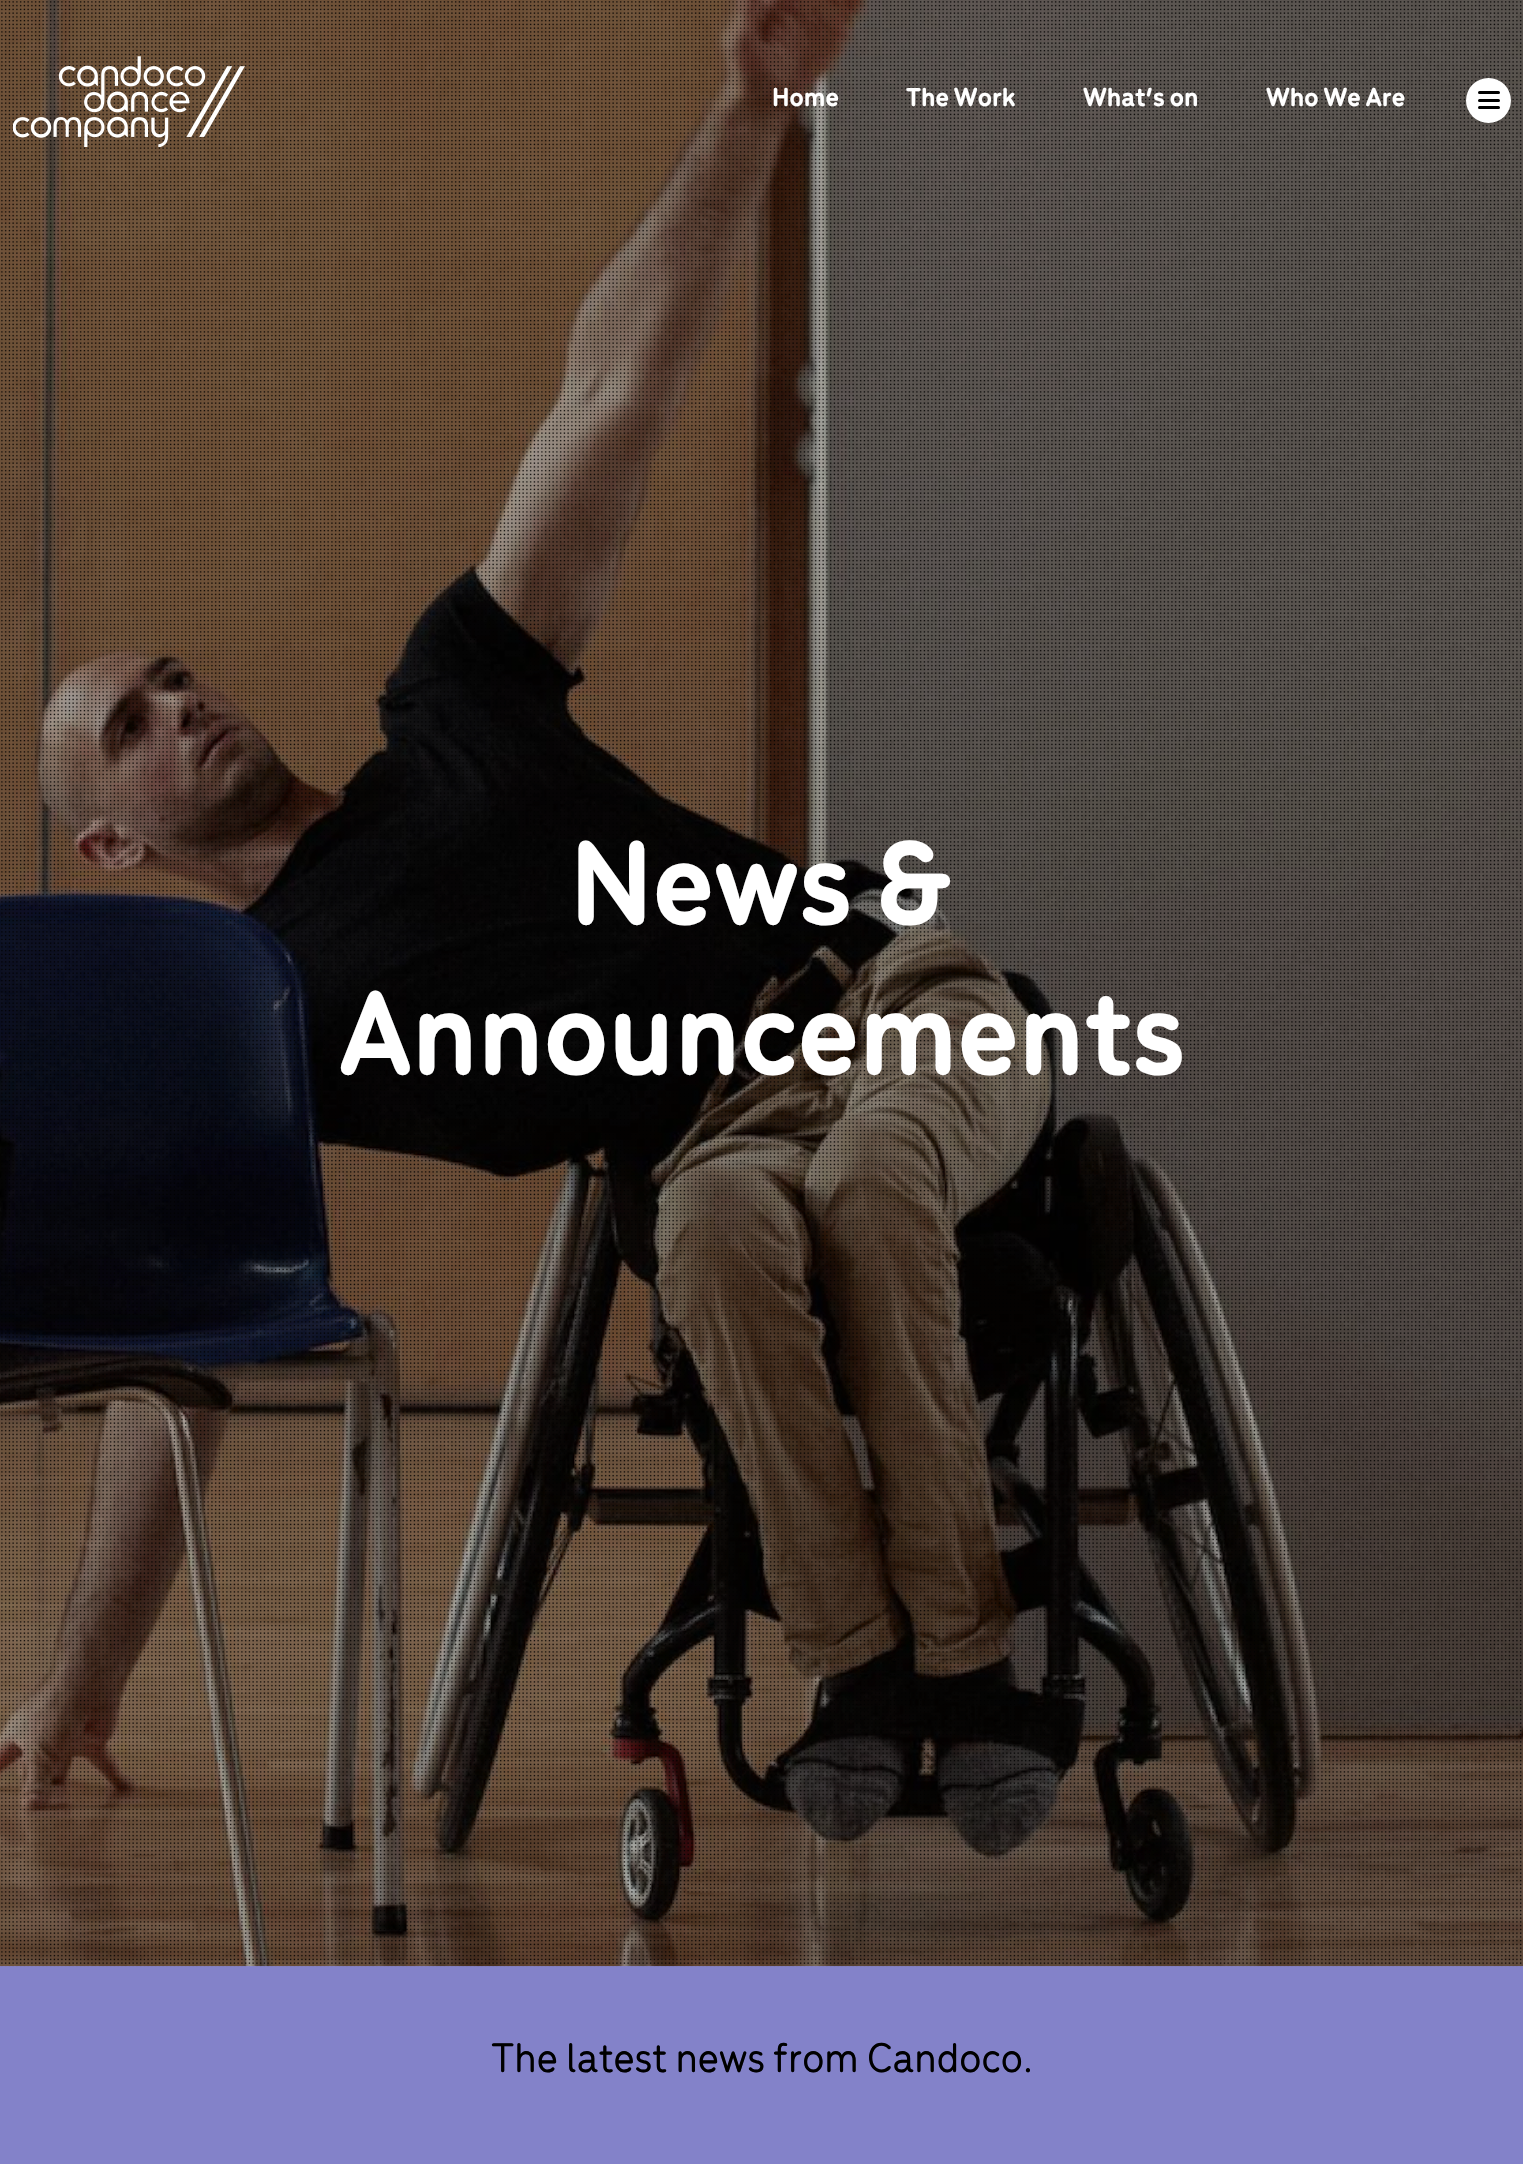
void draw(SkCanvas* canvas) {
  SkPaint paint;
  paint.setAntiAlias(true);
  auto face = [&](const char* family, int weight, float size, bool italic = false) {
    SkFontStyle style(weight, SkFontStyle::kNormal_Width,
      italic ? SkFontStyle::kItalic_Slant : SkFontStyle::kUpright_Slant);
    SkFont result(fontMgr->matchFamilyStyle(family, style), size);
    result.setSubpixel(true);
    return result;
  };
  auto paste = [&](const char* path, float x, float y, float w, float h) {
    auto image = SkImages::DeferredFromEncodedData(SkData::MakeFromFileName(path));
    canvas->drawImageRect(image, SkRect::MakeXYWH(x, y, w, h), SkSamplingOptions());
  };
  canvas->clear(0xff8382c9);
  paste("img/2.png", 0, 0, 1523, 1967);
  paste("img/3.png", 1, 1, 1521, 1966);
  paste("img/1.png", 13, 56, 232, 91);
  paint.setColor(0xffffffff);
  canvas->drawCircle(1488.5f, 100.5f, 22.5f, paint);
  paint.setColor(0xff000000);
  canvas->drawRoundRect(SkRect::MakeXYWH(1478, 91, 22, 3), 1.5f, 1.5f, paint);
  canvas->drawRoundRect(SkRect::MakeXYWH(1478, 99, 22, 3), 1.5f, 1.5f, paint);
  canvas->drawRoundRect(SkRect::MakeXYWH(1478, 106, 22, 3), 1.5f, 1.5f, paint);
  auto f0 = face("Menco", 700, 27.5f);
  paint.setColor(0xffffffff);
  {
    const struct { const char* s; float x, y; } items[] = {
      {"Home", 772, 106},
      {"The Work", 906, 106},
      {"What’s on", 1083, 106},
      {"Who We Are", 1266, 106},
    };
    for (auto [s, x, y] : items) {
      canvas->drawString(s, x, y, f0, paint);
    }
  }
  auto f1 = face("Menco", 700, 125);
  canvas->drawString("News &", 570, 924, f1, paint);
  canvas->drawString("Announcements", 339, 1074, f1, paint);
  auto f2 = face("Menco", 500, 43.75f);
  paint.setColor(0xff000000);
  canvas->drawString("The latest news from Candoco.", 491, 2072, f2, paint);
}
